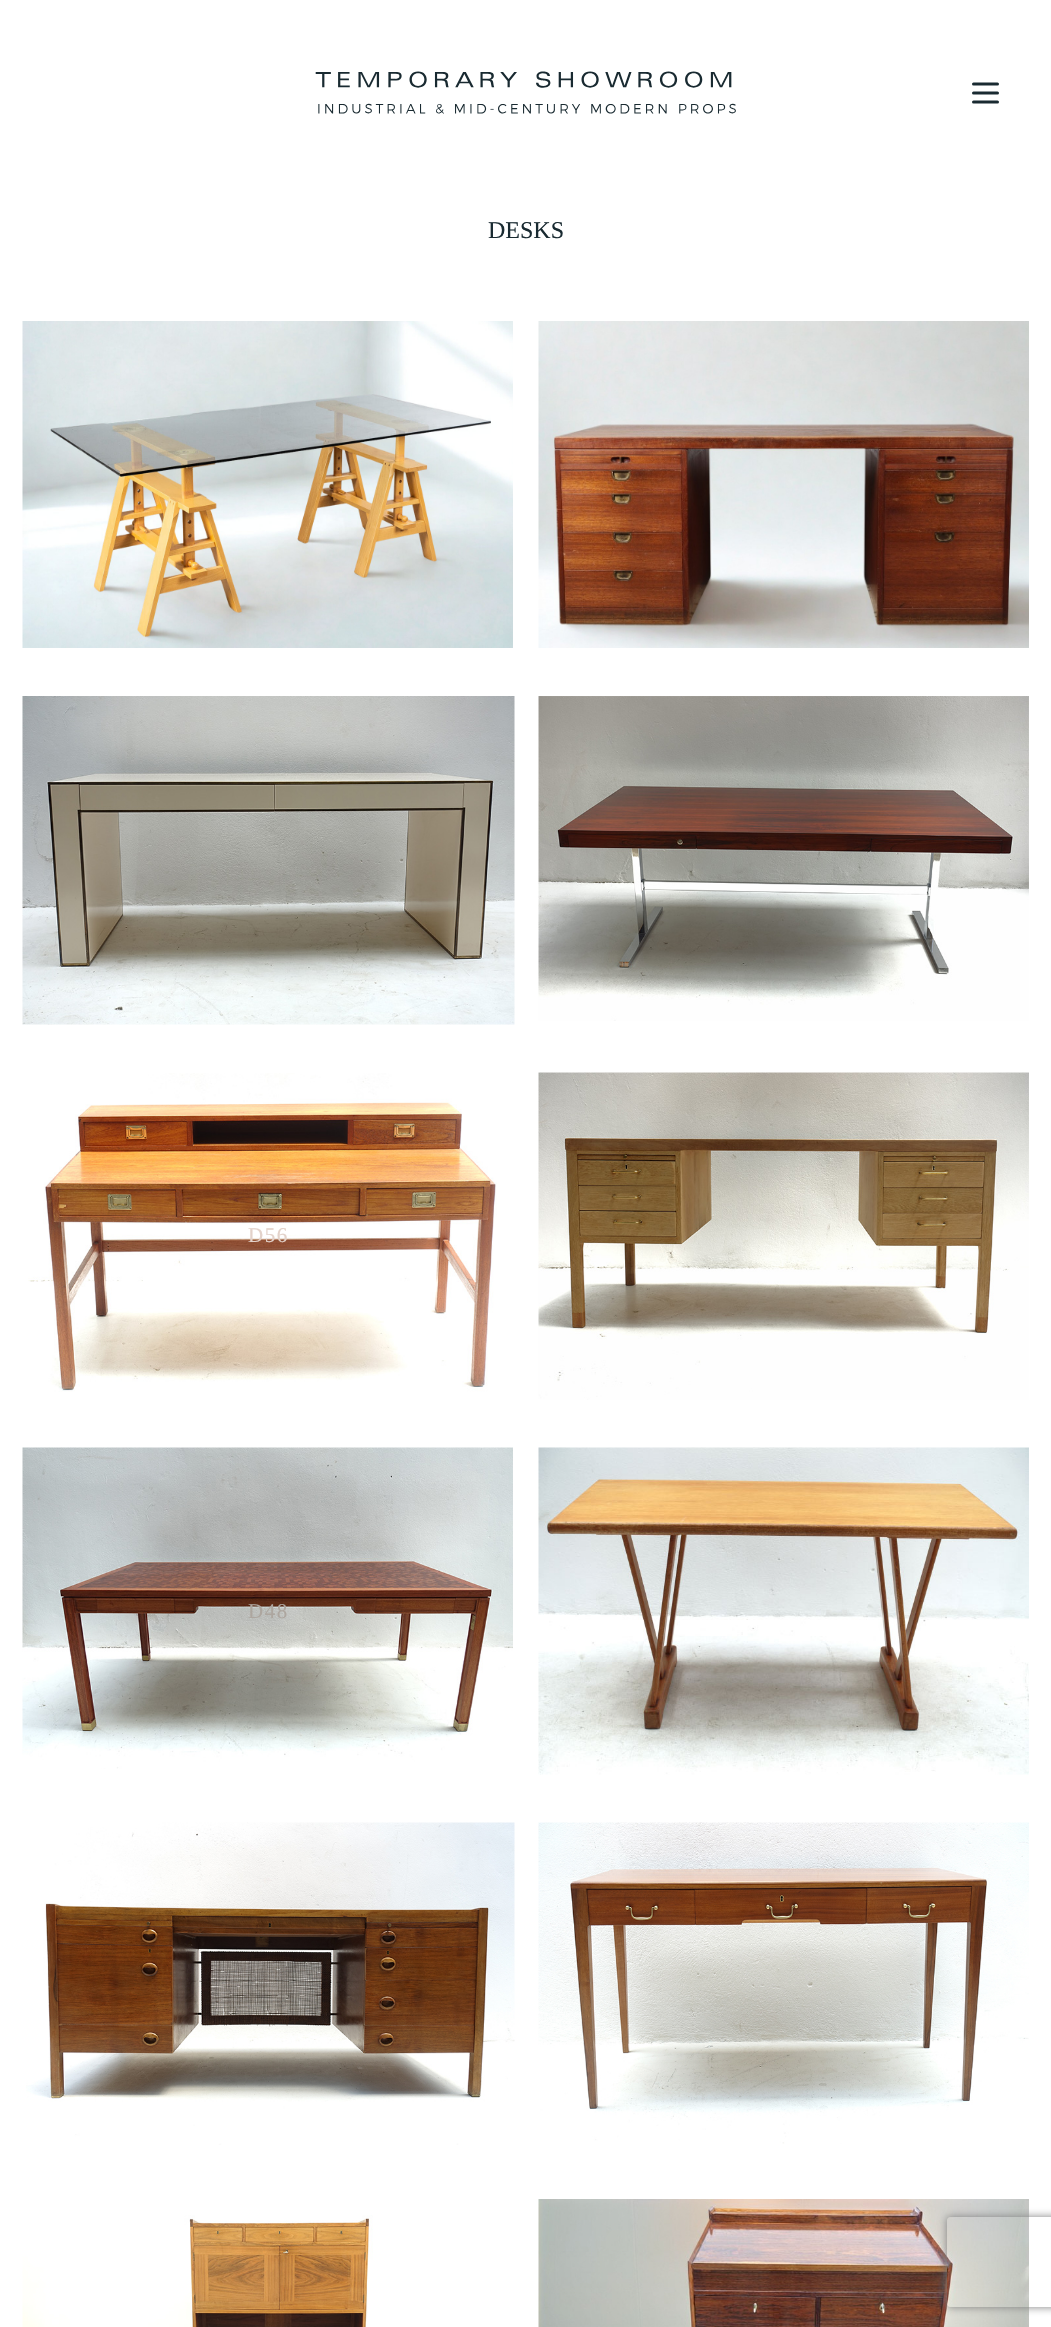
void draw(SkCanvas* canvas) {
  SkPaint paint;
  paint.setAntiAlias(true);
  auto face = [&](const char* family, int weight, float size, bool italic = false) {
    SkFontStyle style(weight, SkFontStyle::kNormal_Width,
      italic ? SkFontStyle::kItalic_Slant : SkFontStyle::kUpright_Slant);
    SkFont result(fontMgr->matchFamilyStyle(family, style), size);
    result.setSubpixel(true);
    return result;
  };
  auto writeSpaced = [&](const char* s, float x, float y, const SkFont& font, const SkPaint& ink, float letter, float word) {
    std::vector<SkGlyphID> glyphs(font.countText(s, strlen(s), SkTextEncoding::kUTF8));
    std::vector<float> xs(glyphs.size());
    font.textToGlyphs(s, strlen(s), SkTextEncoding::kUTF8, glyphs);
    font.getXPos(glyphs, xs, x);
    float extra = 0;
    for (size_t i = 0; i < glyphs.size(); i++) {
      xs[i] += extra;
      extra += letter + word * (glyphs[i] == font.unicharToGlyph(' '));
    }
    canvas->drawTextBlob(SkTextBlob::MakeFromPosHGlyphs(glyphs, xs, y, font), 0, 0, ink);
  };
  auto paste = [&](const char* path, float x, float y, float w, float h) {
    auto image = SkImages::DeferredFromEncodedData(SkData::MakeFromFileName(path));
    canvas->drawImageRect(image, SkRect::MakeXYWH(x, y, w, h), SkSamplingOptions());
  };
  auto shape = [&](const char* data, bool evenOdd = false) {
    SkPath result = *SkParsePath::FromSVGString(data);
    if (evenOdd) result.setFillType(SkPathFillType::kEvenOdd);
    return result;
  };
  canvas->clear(0xffffffff);
  paste("img/1.png", 315, 71, 421, 43);
  paint.setStroke(true);
  paint.setStrokeWidth(3);
  paint.setStrokeCap(SkPaint::kRound_Cap);
  paint.setStrokeJoin(SkPaint::kRound_Join);
  paint.setColor(0xff192a31);
  canvas->drawPath(shape("M973.5 84H997.5M973.5 93H997.5M973.5 102H997.5"), paint);
  paste("img/2.png", 22, 321, 491, 327);
  paste("img/3.png", 538, 321, 491, 327);
  paste("img/4.png", 22, 696, 493, 329);
  paste("img/5.png", 538, 696, 491, 325);
  paste("img/6.png", 28, 1073, 469, 319);
  paste("img/7.png", 538, 1072, 491, 328);
  paste("img/8.png", 22, 1447, 491, 322);
  paste("img/9.png", 538, 1447, 491, 328);
  paste("img/10.png", 26, 1822, 489, 323);
  paste("img/11.png", 538, 1822, 491, 322);
  paste("img/12.png", 22, 2215, 351, 112);
  paste("img/13.png", 538, 2199, 491, 128);
  canvas->save();
  canvas->clipPath(shape("M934 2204H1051V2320H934ZM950 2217H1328C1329.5 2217 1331 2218.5 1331 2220V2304C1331 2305.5 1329.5 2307 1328 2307H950C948.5 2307 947 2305.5 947 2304V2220C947 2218.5 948.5 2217 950 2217Z", true), true);
  paint.setStroke(false);
  paint.setColor(0xff808080);
  paint.setMaskFilter(SkMaskFilter::MakeBlur(kNormal_SkBlurStyle, 4));
  canvas->drawRoundRect(SkRect::MakeXYWH(947, 2217, 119, 90), 3, 3, paint);
  paint.setMaskFilter(nullptr);
  canvas->restore();
  auto f0 = face("Liberation Serif", 400, 24);
  paint.setColor(0xff192a31);
  canvas->drawString("DESKS", 488, 238, f0, paint);
  auto f1 = face("Liberation Serif", 400, 21);
  paint.setColor(0xffe3d2ca);
  writeSpaced("D56", 248, 1242, f1, paint, 1.5f, 0);
  paint.setColor(0xffada69f);
  writeSpaced("D48", 248, 1618, f1, paint, 1.5f, 0);
}
